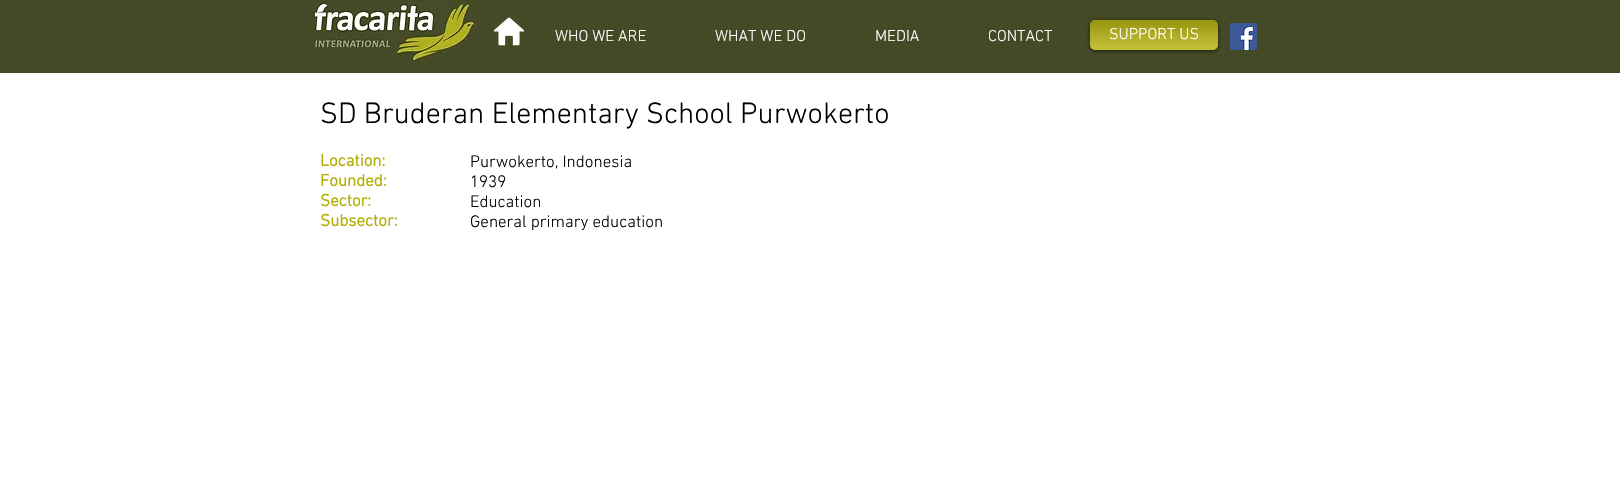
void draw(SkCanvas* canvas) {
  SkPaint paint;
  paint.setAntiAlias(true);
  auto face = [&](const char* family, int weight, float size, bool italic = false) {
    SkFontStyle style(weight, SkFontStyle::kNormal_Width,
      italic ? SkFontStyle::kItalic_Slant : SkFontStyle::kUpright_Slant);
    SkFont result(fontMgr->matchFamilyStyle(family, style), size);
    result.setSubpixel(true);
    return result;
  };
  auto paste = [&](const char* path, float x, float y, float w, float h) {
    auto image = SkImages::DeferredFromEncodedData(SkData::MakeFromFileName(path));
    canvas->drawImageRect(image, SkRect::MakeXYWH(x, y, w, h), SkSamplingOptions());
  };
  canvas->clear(0xffffffff);
  paint.setColor(0xff454a26);
  canvas->drawRect(SkRect::MakeXYWH(0, 0, 1620, 73), paint);
  paste("img/1.png", 494, 17, 30, 29);
  paste("img/2.png", 311, 1, 165, 60);
  paint.setColor(0x99000000);
  paint.setMaskFilter(SkMaskFilter::MakeBlur(kNormal_SkBlurStyle, 2));
  canvas->drawRoundRect(SkRect::MakeXYWH(1090, 21, 128, 30), 5, 5, paint);
  paint.setMaskFilter(nullptr);
  paint.setColor(0xffb2af06);
  canvas->drawRoundRect(SkRect::MakeXYWH(1090, 20, 128, 30), 5, 5, paint);
  paste("img/3.png", 1090, 20, 128, 26);
  paste("img/4.png", 1090, 20, 128, 30);
  paste("img/5.png", 1230, 23, 27, 27);
  auto f0 = face("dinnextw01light", 300, 16);
  paint.setColor(0xffffffff);
  {
    const struct { const char* s; float x, y; } items[] = {
      {"WHO WE ARE", 555, 41},
      {"WHAT WE DO", 715, 41},
      {"MEDIA", 875, 41},
      {"CONTACT", 988, 41},
      {"SUPPORT US", 1109, 39},
    };
    for (auto [s, x, y] : items) {
      canvas->drawString(s, x, y, f0, paint);
    }
  }
  auto f1 = face("dinnextw01light", 300, 30);
  paint.setColor(0xff000000);
  canvas->drawString("SD Bruderan Elementary School Purwokerto", 320, 123, f1, paint);
  auto f2 = face("dinnextw01light", 700, 17);
  paint.setColor(0xffb2af06);
  {
    const struct { const char* s; float x, y; } items[] = {
      {"Location:", 320, 166},
      {"Founded:", 320, 186},
      {"Sector:", 320, 206},
      {"Subsector:", 320, 226},
    };
    for (auto [s, x, y] : items) {
      canvas->drawString(s, x, y, f2, paint);
    }
  }
  auto f3 = face("dinnextw01light", 300, 17);
  paint.setColor(0xff000000);
  {
    const struct { const char* s; float x, y; } items[] = {
      {"Purwokerto, Indonesia", 470, 167},
      {"1939", 470, 187},
      {"Education", 470, 207},
      {"General primary education", 470, 227},
    };
    for (auto [s, x, y] : items) {
      canvas->drawString(s, x, y, f3, paint);
    }
  }
}
